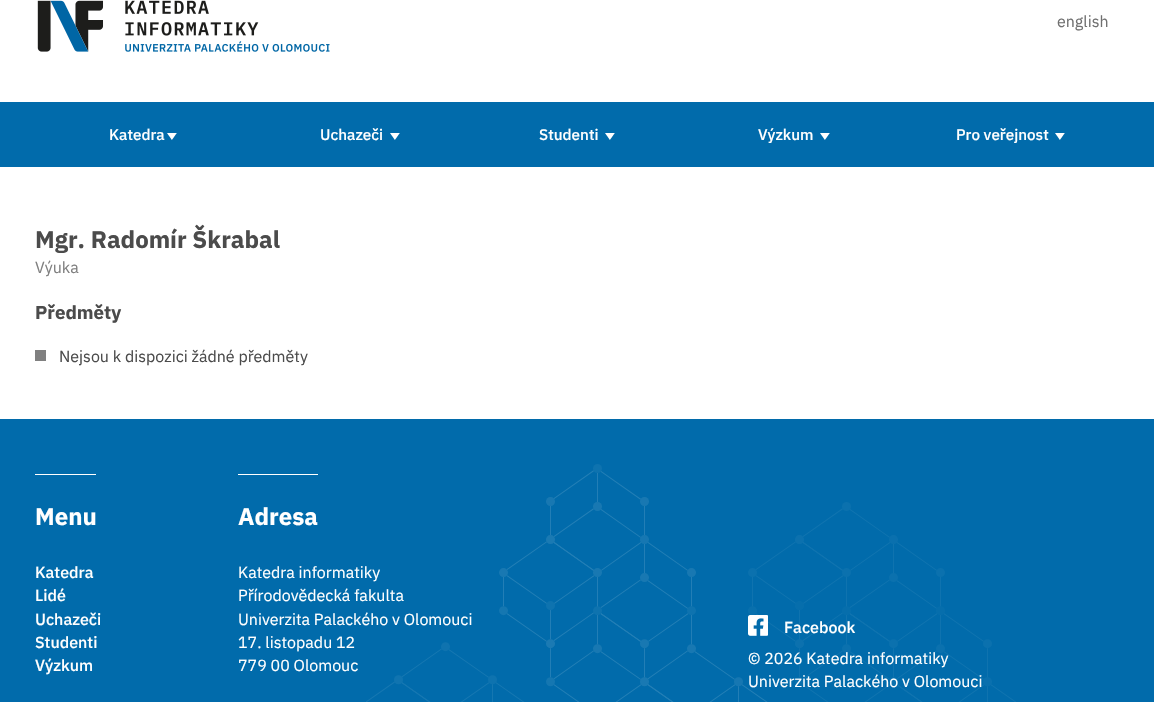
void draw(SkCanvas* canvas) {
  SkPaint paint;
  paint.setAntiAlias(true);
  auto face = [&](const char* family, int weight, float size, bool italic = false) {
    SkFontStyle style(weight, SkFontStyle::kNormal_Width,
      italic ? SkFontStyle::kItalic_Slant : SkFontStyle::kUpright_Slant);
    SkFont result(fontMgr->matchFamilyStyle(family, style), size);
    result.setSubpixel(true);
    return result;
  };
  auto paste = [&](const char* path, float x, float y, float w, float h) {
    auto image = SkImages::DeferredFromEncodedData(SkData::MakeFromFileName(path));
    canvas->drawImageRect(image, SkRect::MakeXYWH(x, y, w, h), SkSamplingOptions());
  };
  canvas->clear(0xffffffff);
  paste("img/1.png", 37, 0, 293, 52);
  paint.setColor(0xff016bab);
  canvas->drawRect(SkRect::MakeXYWH(0, 102, 1154, 65), paint);
  paste("img/2.png", 167, 133, 10, 7);
  paste("img/2.png", 390, 133, 10, 7);
  paste("img/2.png", 605, 133, 10, 7);
  paste("img/2.png", 820, 133, 10, 7);
  paste("img/2.png", 1055, 133, 10, 7);
  paint.setColor(0xff808080);
  canvas->drawRect(SkRect::MakeXYWH(35, 350, 11, 11), paint);
  paint.setColor(0xff016bab);
  canvas->drawRect(SkRect::MakeXYWH(0, 419, 1154, 283), paint);
  paste("img/3.png", 366, 464, 650, 238);
  paint.setColor(0xffffffff);
  canvas->drawRect(SkRect::MakeXYWH(35, 474, 61, 1), paint);
  canvas->drawRect(SkRect::MakeXYWH(238, 474, 80, 1), paint);
  paste("img/4.png", 748, 615, 20, 21);
  auto f0 = face("IBM Plex Sans", 400, 16);
  paint.setColor(0xff707070);
  canvas->drawString("english", 1057, 27, f0, paint);
  auto f1 = face("IBM Plex Sans", 500, 15.25f);
  paint.setColor(0xffffffff);
  {
    const struct { const char* s; float x, y; } items[] = {
      {"Katedra", 109, 140},
      {"Uchazeči", 320, 140},
      {"Studenti", 539, 140},
      {"Výzkum", 758, 140},
      {"Pro veřejnost", 956, 140},
    };
    for (auto [s, x, y] : items) {
      canvas->drawString(s, x, y, f1, paint);
    }
  }
  auto f2 = face("IBM Plex Sans", 700, 24);
  paint.setColor(0xff4b4b4b);
  canvas->drawString("Mgr. Radomír Škrabal", 35, 248, f2, paint);
  paint.setColor(0xff808080);
  canvas->drawString("Výuka", 35, 273, f0, paint);
  auto f3 = face("IBM Plex Sans", 700, 18.75f);
  paint.setColor(0xff4b4b4b);
  canvas->drawString("Předměty", 35, 319, f3, paint);
  canvas->drawString("Nejsou k dispozici žádné předměty", 59, 362, f0, paint);
  paint.setColor(0xffffffff);
  canvas->drawString("Menu", 35, 525, f2, paint);
  auto f4 = face("IBM Plex Sans", 500, 16);
  {
    const struct { const char* s; float x, y; } items[] = {
      {"Katedra", 35, 578},
      {"Lidé", 35, 601},
      {"Uchazeči", 35, 625},
      {"Studenti", 35, 648},
      {"Výzkum", 35, 671},
    };
    for (auto [s, x, y] : items) {
      canvas->drawString(s, x, y, f4, paint);
    }
  }
  canvas->drawString("Adresa", 238, 525, f2, paint);
  {
    const struct { const char* s; float x, y; } items[] = {
      {"Katedra informatiky", 238, 578},
      {"Přírodovědecká fakulta", 238, 601},
      {"Univerzita Palackého v Olomouci", 238, 625},
      {"17. listopadu 12", 238, 648},
      {"779 00 Olomouc", 238, 671},
    };
    for (auto [s, x, y] : items) {
      canvas->drawString(s, x, y, f0, paint);
    }
  }
  canvas->drawString("Facebook", 784, 633, f4, paint);
  canvas->drawString("© 2026 Katedra informatiky", 748, 664, f0, paint);
  canvas->drawString("Univerzita Palackého v Olomouci", 748, 687, f0, paint);
}
